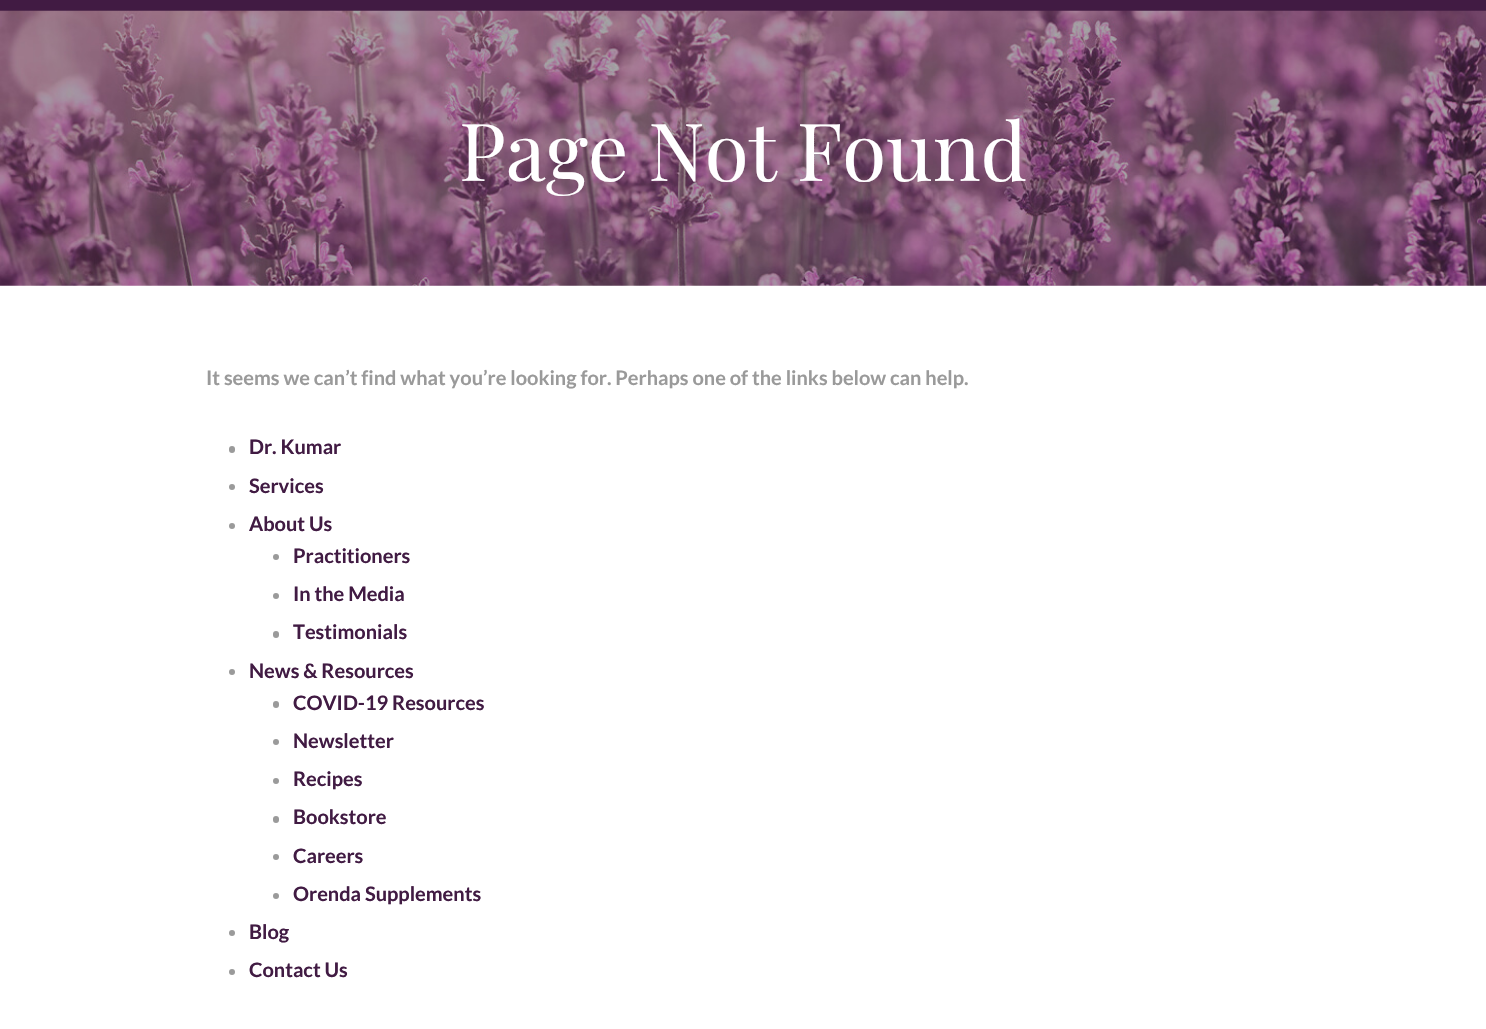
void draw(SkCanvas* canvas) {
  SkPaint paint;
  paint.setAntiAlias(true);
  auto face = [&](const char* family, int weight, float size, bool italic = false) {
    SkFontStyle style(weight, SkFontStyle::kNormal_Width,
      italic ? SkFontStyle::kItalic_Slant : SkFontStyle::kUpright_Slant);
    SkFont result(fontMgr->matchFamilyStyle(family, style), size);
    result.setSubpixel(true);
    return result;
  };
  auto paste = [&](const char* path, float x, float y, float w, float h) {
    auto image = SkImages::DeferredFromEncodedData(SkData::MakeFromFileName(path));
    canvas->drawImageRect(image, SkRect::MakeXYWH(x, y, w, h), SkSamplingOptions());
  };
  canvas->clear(0xffffffff);
  paint.setColor(0xff411b43);
  canvas->drawRect(SkRect::MakeXYWH(0, 0, 1486, 11), paint);
  paste("img/1.png", 0, 10, 1486, 276);
  paint.setColor(0xff9a9a9a);
  canvas->drawRoundRect(SkRect::MakeXYWH(229, 446, 6, 7), 3, 3, paint);
  canvas->drawCircle(232, 487, 3, paint);
  canvas->drawCircle(232, 526, 3, paint);
  canvas->drawCircle(276, 557, 3, paint);
  canvas->drawCircle(276, 596, 3, paint);
  canvas->drawRoundRect(SkRect::MakeXYWH(273, 631, 6, 7), 3, 3, paint);
  canvas->drawCircle(232, 672, 3, paint);
  canvas->drawRoundRect(SkRect::MakeXYWH(273, 701, 6, 7), 3, 3, paint);
  canvas->drawCircle(276, 742, 3, paint);
  canvas->drawCircle(276, 781, 3, paint);
  canvas->drawRoundRect(SkRect::MakeXYWH(273, 816, 6, 7), 3, 3, paint);
  canvas->drawCircle(276, 857, 3, paint);
  canvas->drawCircle(276, 896, 3, paint);
  canvas->drawCircle(232, 933, 3, paint);
  canvas->drawCircle(232, 972, 3, paint);
  auto f0 = face("Playfair Display", 400, 80);
  paint.setColor(0xffffffff);
  canvas->drawString("Page Not Found", 459, 181, f0, paint);
  auto f1 = face("Lato", 700, 20);
  paint.setColor(0xff9a9a9a);
  canvas->drawString("It seems we can’t find what you’re looking for. Perhaps one of the links below can help.", 206, 385, f1, paint);
  paint.setColor(0xff411b43);
  {
    const struct { const char* s; float x, y; } items[] = {
      {"Dr. Kumar", 249, 454},
      {"Services", 249, 493},
      {"About Us", 249, 531},
      {"Practitioners", 293, 563},
      {"In the Media", 293, 601},
      {"Testimonials", 293, 639},
      {"News & Resources", 249, 678},
      {"COVID-19 Resources", 293, 710},
      {"Newsletter", 293, 748},
      {"Recipes", 293, 786},
      {"Bookstore", 293, 824},
      {"Careers", 293, 863},
      {"Orenda Supplements", 293, 901},
      {"Blog", 249, 939},
      {"Contact Us", 249, 977},
    };
    for (auto [s, x, y] : items) {
      canvas->drawString(s, x, y, f1, paint);
    }
  }
}
